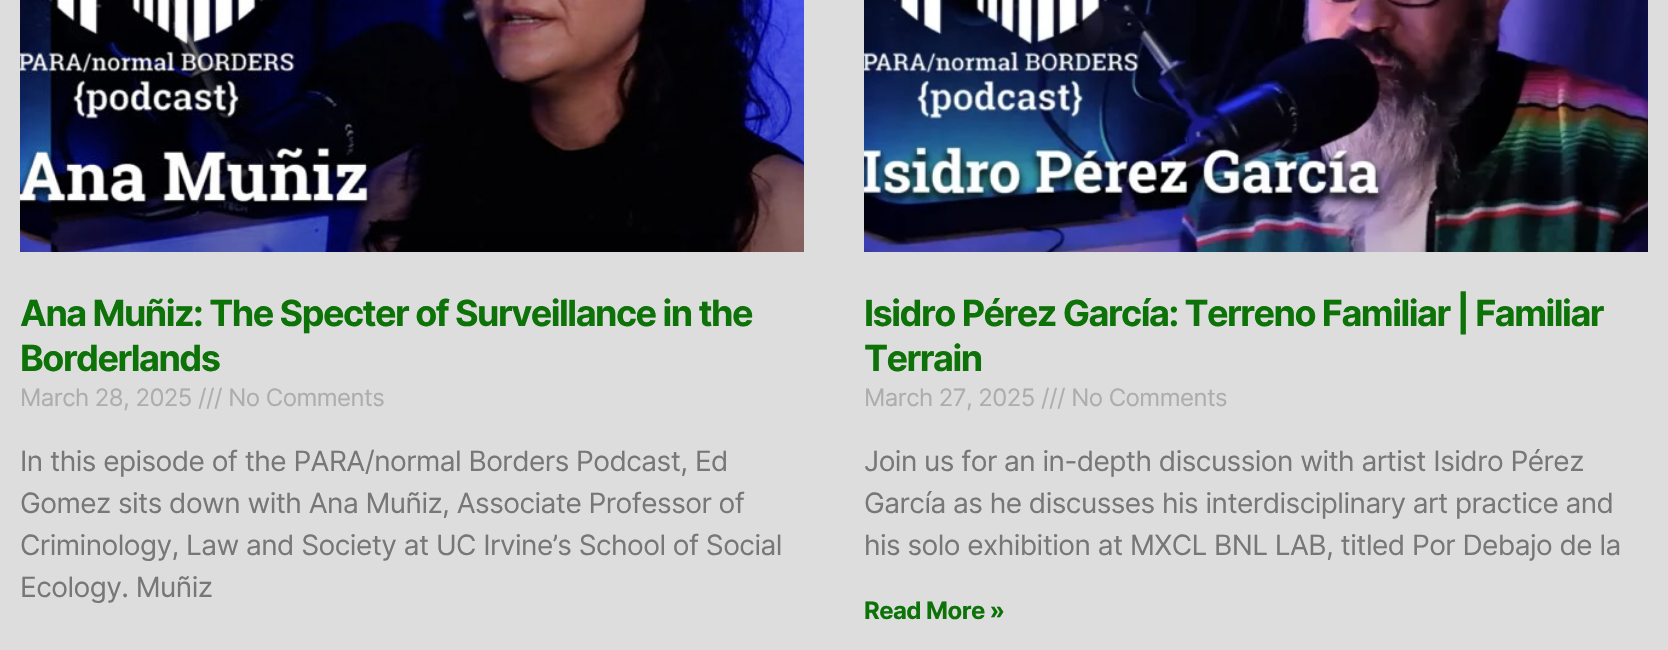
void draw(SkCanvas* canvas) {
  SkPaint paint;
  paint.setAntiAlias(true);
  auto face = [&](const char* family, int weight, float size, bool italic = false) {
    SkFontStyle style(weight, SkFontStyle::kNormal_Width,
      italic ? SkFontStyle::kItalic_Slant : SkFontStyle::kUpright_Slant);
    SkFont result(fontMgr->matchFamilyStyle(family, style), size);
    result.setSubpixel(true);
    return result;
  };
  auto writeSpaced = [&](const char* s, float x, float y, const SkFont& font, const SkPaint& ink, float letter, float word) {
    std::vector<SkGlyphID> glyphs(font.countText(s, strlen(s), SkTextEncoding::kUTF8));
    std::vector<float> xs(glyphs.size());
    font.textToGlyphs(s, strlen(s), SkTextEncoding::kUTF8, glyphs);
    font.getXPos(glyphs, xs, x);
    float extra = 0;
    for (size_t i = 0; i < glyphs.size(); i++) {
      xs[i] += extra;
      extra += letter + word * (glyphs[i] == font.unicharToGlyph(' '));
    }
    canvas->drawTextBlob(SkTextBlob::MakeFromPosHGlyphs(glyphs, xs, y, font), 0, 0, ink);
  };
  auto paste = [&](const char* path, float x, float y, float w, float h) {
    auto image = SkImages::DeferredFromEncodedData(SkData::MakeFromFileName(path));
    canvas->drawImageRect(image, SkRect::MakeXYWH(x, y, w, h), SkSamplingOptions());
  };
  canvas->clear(0xffdddddd);
  paste("img/1.png", 20, 0, 784, 252);
  paste("img/2.png", 864, 0, 784, 252);
  auto f0 = face("Inter", 700, 36);
  paint.setColor(0xff0d7207);
  writeSpaced("Ana Muñiz: The Specter of Surveillance in the", 20, 326, f0, paint, -1.5f, 0);
  writeSpaced("Borderlands", 20, 371, f0, paint, -1.5f, 0);
  auto f1 = face("Inter", 400, 24);
  paint.setColor(0xffadadad);
  writeSpaced("March 28, 2025 /// No Comments", 20, 406, f1, paint, -0.55f, 0);
  auto f2 = face("Inter", 400, 28);
  paint.setColor(0xff777777);
  {
    const struct { const char* s; float x, y; } items[] = {
      {"In this episode of the PARA/normal Borders Podcast, Ed", 20, 471},
      {"Gomez sits down with Ana Muñiz, Associate Professor of", 20, 513},
      {"Criminology, Law and Society at UC Irvine’s School of Social", 20, 555},
      {"Ecology. Muñiz", 20, 597},
    };
    for (auto [s, x, y] : items) {
      writeSpaced(s, x, y, f2, paint, -0.55f, 0);
    }
  }
  paint.setColor(0xff0d7207);
  writeSpaced("Isidro Pérez García: Terreno Familiar | Familiar", 864, 326, f0, paint, -1.5f, 0);
  writeSpaced("Terrain", 864, 371, f0, paint, -1.5f, 0);
  paint.setColor(0xffadadad);
  writeSpaced("March 27, 2025 /// No Comments", 864, 406, f1, paint, -0.55f, 0);
  paint.setColor(0xff777777);
  {
    const struct { const char* s; float x, y; } items[] = {
      {"Join us for an in-depth discussion with artist Isidro Pérez", 864, 471},
      {"García as he discusses his interdisciplinary art practice and", 864, 513},
      {"his solo exhibition at MXCL BNL LAB, titled Por Debajo de la", 864, 555},
    };
    for (auto [s, x, y] : items) {
      writeSpaced(s, x, y, f2, paint, -0.55f, 0);
    }
  }
  auto f3 = face("Inter", 700, 24);
  paint.setColor(0xff0d7207);
  writeSpaced("Read More »", 864, 619, f3, paint, -0.55f, 0);
}
